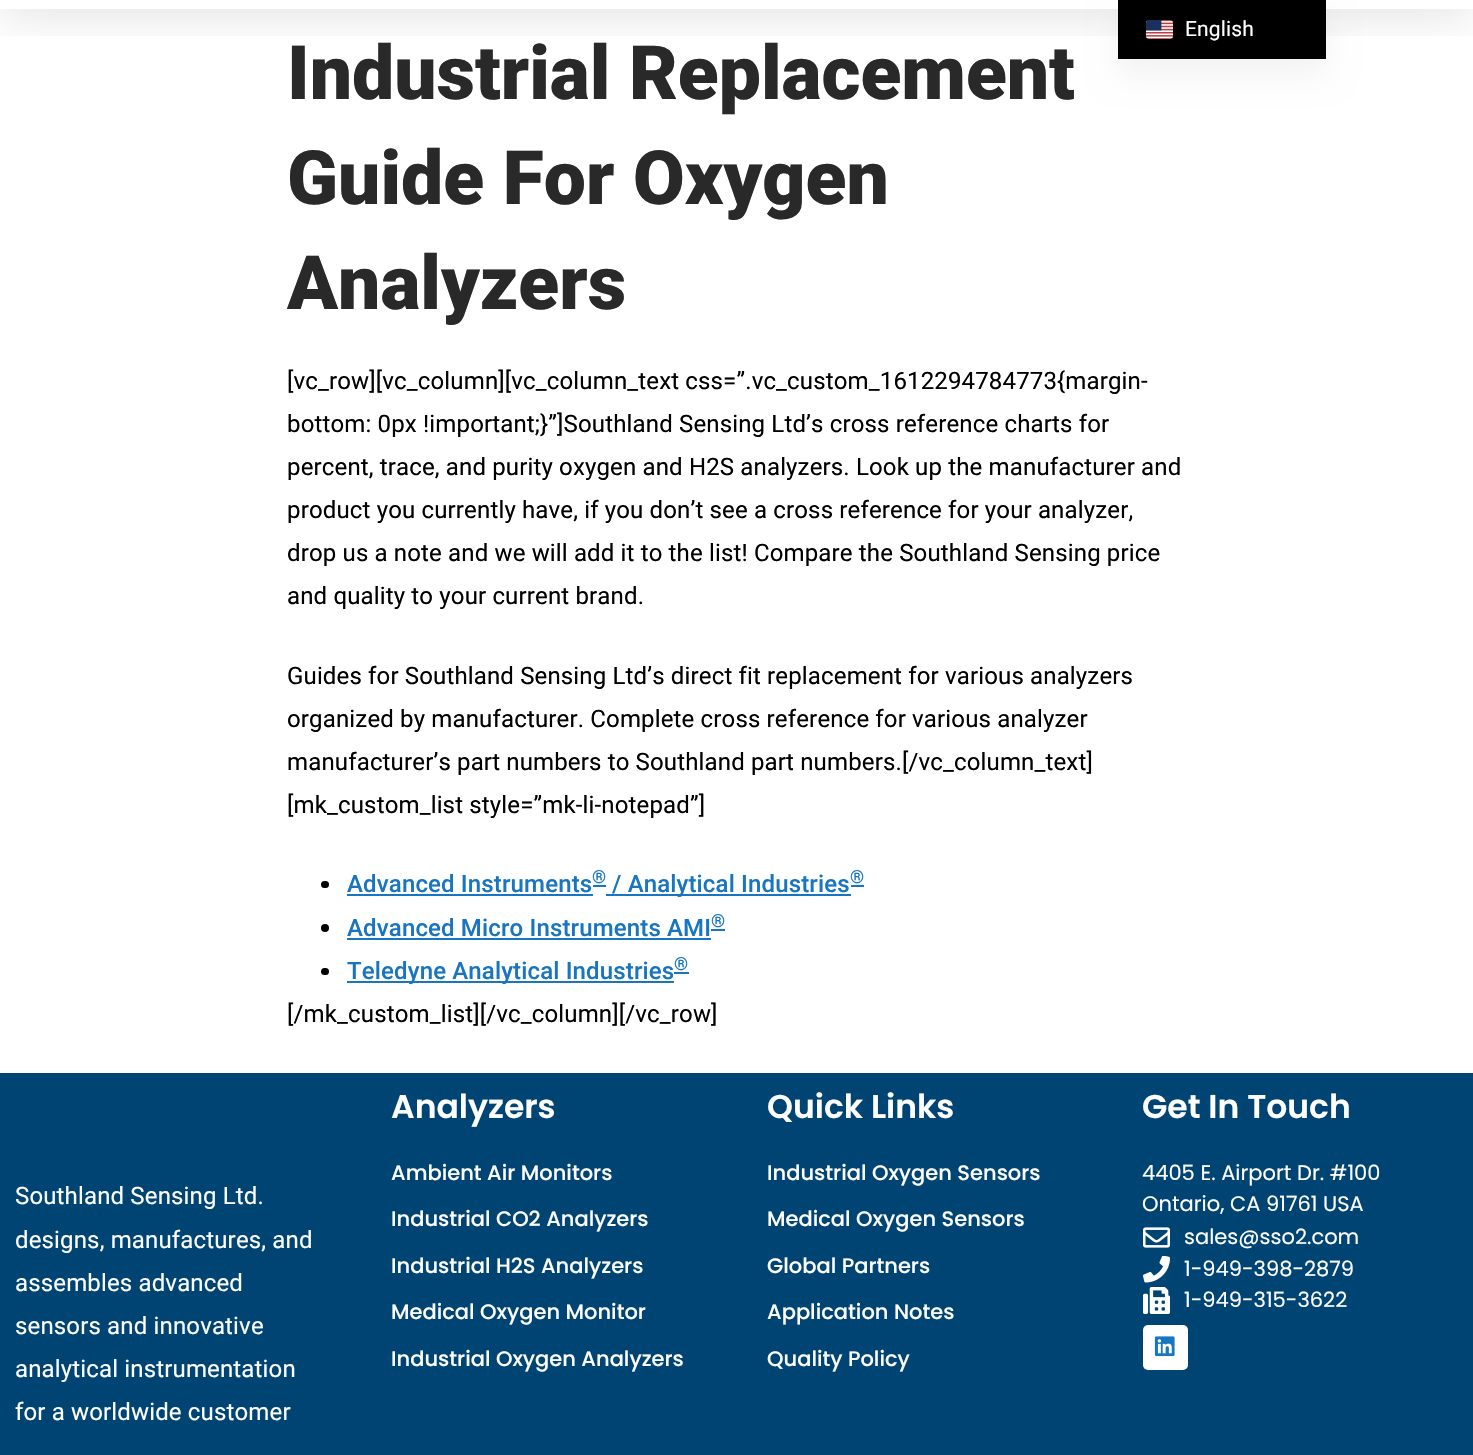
void draw(SkCanvas* canvas) {
  SkPaint paint;
  paint.setAntiAlias(true);
  auto face = [&](const char* family, int weight, float size, bool italic = false) {
    SkFontStyle style(weight, SkFontStyle::kNormal_Width,
      italic ? SkFontStyle::kItalic_Slant : SkFontStyle::kUpright_Slant);
    SkFont result(fontMgr->matchFamilyStyle(family, style), size);
    result.setSubpixel(true);
    return result;
  };
  auto writeSpaced = [&](const char* s, float x, float y, const SkFont& font, const SkPaint& ink, float letter, float word) {
    std::vector<SkGlyphID> glyphs(font.countText(s, strlen(s), SkTextEncoding::kUTF8));
    std::vector<float> xs(glyphs.size());
    font.textToGlyphs(s, strlen(s), SkTextEncoding::kUTF8, glyphs);
    font.getXPos(glyphs, xs, x);
    float extra = 0;
    for (size_t i = 0; i < glyphs.size(); i++) {
      xs[i] += extra;
      extra += letter + word * (glyphs[i] == font.unicharToGlyph(' '));
    }
    canvas->drawTextBlob(SkTextBlob::MakeFromPosHGlyphs(glyphs, xs, y, font), 0, 0, ink);
  };
  auto paste = [&](const char* path, float x, float y, float w, float h) {
    auto image = SkImages::DeferredFromEncodedData(SkData::MakeFromFileName(path));
    canvas->drawImageRect(image, SkRect::MakeXYWH(x, y, w, h), SkSamplingOptions());
  };
  canvas->clear(0xffffffff);
  canvas->save();
  canvas->clipRect(SkRect::MakeXYWH(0, 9, 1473, 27));
  paint.setColor(0x1a000000);
  paint.setMaskFilter(SkMaskFilter::MakeBlur(kNormal_SkBlurStyle, 22.5f));
  canvas->drawRect(SkRect::MakeXYWH(0, -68, 1473, 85), paint);
  paint.setMaskFilter(nullptr);
  canvas->restore();
  paint.setColor(0x0d000000);
  paint.setMaskFilter(SkMaskFilter::MakeBlur(kNormal_SkBlurStyle, 15));
  canvas->drawRect(SkRect::MakeXYWH(1118, 15, 208, 59), paint);
  paint.setMaskFilter(nullptr);
  paint.setColor(0xff000000);
  canvas->drawRect(SkRect::MakeXYWH(1118, 0, 208, 59), paint);
  paste("img/1.png", 1146, 20, 27, 19);
  canvas->drawRoundRect(SkRect::MakeXYWH(321, 881, 8, 7), 3.5f, 3.5f, paint);
  {
    const struct { float x, y, w, h; SkColor color; } items[] = {
      {347, 894, 246, 2, 0xff1875bf},
      {606, 894, 245, 2, 0xff1875bf},
      {593, 885, 13, 2, 0xff1875bf},
      {851, 885, 13, 2, 0xff1875bf},
    };
    for (auto [x, y, w, h, color] : items) {
      paint.setColor(color);
      canvas->drawRect(SkRect::MakeXYWH(x, y, w, h), paint);
    }
  }
  paint.setColor(0xff000000);
  canvas->drawCircle(325, 928, 4, paint);
  paint.setColor(0xff1875bf);
  canvas->drawRect(SkRect::MakeXYWH(347, 938, 364, 2), paint);
  canvas->drawRect(SkRect::MakeXYWH(711, 929, 14, 2), paint);
  paint.setColor(0xff000000);
  canvas->drawRoundRect(SkRect::MakeXYWH(321, 968, 8, 7), 3.5f, 3.5f, paint);
  {
    const struct { float x, y, w, h; SkColor color; } items[] = {
      {347, 981, 327, 2, 0xff1875bf},
      {674, 972, 15, 2, 0xff1875bf},
      {0, 1073, 1473, 382, 0xff004473},
    };
    for (auto [x, y, w, h, color] : items) {
      paint.setColor(color);
      canvas->drawRect(SkRect::MakeXYWH(x, y, w, h), paint);
    }
  }
  paste("img/2.png", 1143, 1227, 27, 21);
  paste("img/3.png", 1143, 1256, 27, 27);
  paste("img/4.png", 1143, 1287, 27, 27);
  paint.setColor(0xffffffff);
  canvas->drawRoundRect(SkRect::MakeXYWH(1143, 1325, 45, 45), 5, 5, paint);
  paste("img/5.png", 1154, 1336, 21, 21);
  auto f0 = face("Roboto", 400, 21);
  writeSpaced("English", 1185, 36, f0, paint, 0.15f, 0);
  auto f1 = face("Roboto", 900, 75);
  paint.setColor(0xff292929);
  {
    const struct { const char* s; float x, y; } items[] = {
      {"Industrial Replacement", 287, 99},
      {"Guide For Oxygen", 287, 204},
      {"Analyzers", 287, 309},
    };
    for (auto [s, x, y] : items) {
      canvas->drawString(s, x, y, f1, paint);
    }
  }
  auto f2 = face("Roboto", 400, 24);
  paint.setColor(0xff000000);
  {
    const struct { const char* s; float x, y; } items[] = {
      {"[vc_row][vc_column][vc_column_text css=”.vc_custom_1612294784773{margin-", 287, 389},
      {"bottom: 0px !important;}”]Southland Sensing Ltd’s cross reference charts for", 287, 432},
      {"percent, trace, and purity oxygen and H2S analyzers. Look up the manufacturer and", 287, 475},
      {"product you currently have, if you don’t see a cross reference for your analyzer,", 287, 518},
      {"drop us a note and we will add it to the list! Compare the Southland Sensing price", 287, 561},
      {"and quality to your current brand.", 287, 604},
      {"Guides for Southland Sensing Ltd’s direct fit replacement for various analyzers", 287, 684},
      {"organized by manufacturer. Complete cross reference for various analyzer", 287, 727},
      {"manufacturer’s part numbers to Southland part numbers.[/vc_column_text]", 287, 770},
      {"[mk_custom_list style=”mk-li-notepad”]", 287, 813},
    };
    for (auto [s, x, y] : items) {
      writeSpaced(s, x, y, f2, paint, 0.15f, 0);
    }
  }
  auto f3 = face("Roboto", 500, 24);
  paint.setColor(0xff1875bf);
  writeSpaced("Advanced Instruments", 347, 892, f3, paint, 0.15f, 0);
  auto f4 = face("Roboto", 500, 18);
  writeSpaced("®", 592, 883, f4, paint, 0.15f, 0);
  writeSpaced("/ Analytical Industries", 612, 892, f3, paint, 0.15f, 0);
  writeSpaced("®", 850, 883, f4, paint, 0.15f, 0);
  writeSpaced("Advanced Micro Instruments AMI", 347, 936, f3, paint, 0.15f, 0);
  writeSpaced("®", 711, 927, f4, paint, 0.15f, 0);
  writeSpaced("Teledyne Analytical Industries", 347, 979, f3, paint, 0.15f, 0);
  writeSpaced("®", 674, 970, f4, paint, 0.15f, 0);
  paint.setColor(0xff000000);
  writeSpaced("[/mk_custom_list][/vc_column][/vc_row]", 287, 1022, f2, paint, 0.15f, 0);
  paint.setColor(0xffffffff);
  {
    const struct { const char* s; float x, y; } items[] = {
      {"Southland Sensing Ltd.", 15, 1204},
      {"designs, manufactures, and", 15, 1248},
      {"assembles advanced", 15, 1291},
      {"sensors and innovative", 15, 1334},
      {"analytical instrumentation", 15, 1377},
      {"for a worldwide customer", 15, 1420},
    };
    for (auto [s, x, y] : items) {
      writeSpaced(s, x, y, f2, paint, 0.15f, 0);
    }
  }
  auto f5 = face("Poppins", 600, 33);
  canvas->drawString("Analyzers", 391, 1118, f5, paint);
  auto f6 = face("Poppins", 500, 21);
  {
    const struct { const char* s; float x, y; } items[] = {
      {"Ambient Air Monitors", 391, 1180},
      {"Industrial CO2 Analyzers", 391, 1226},
      {"Industrial H2S Analyzers", 391, 1273},
      {"Medical Oxygen Monitor", 391, 1319},
      {"Industrial Oxygen Analyzers", 391, 1366},
    };
    for (auto [s, x, y] : items) {
      canvas->drawString(s, x, y, f6, paint);
    }
  }
  canvas->drawString("Quick Links", 767, 1118, f5, paint);
  {
    const struct { const char* s; float x, y; } items[] = {
      {"Industrial Oxygen Sensors", 767, 1180},
      {"Medical Oxygen Sensors", 767, 1226},
      {"Global Partners", 767, 1273},
      {"Application Notes", 767, 1319},
      {"Quality Policy", 767, 1366},
    };
    for (auto [s, x, y] : items) {
      canvas->drawString(s, x, y, f6, paint);
    }
  }
  canvas->drawString("Get In Touch", 1142, 1118, f5, paint);
  auto f7 = face("Poppins", 400, 21);
  {
    const struct { const char* s; float x, y; } items[] = {
      {"4405 E. Airport Dr. #100", 1142, 1180},
      {"Ontario, CA 91761 USA", 1142, 1211},
      {"sales@sso2.com", 1184, 1244},
      {"1-949-398-2879", 1184, 1276},
      {"1-949-315-3622", 1184, 1307},
    };
    for (auto [s, x, y] : items) {
      canvas->drawString(s, x, y, f7, paint);
    }
  }
}
